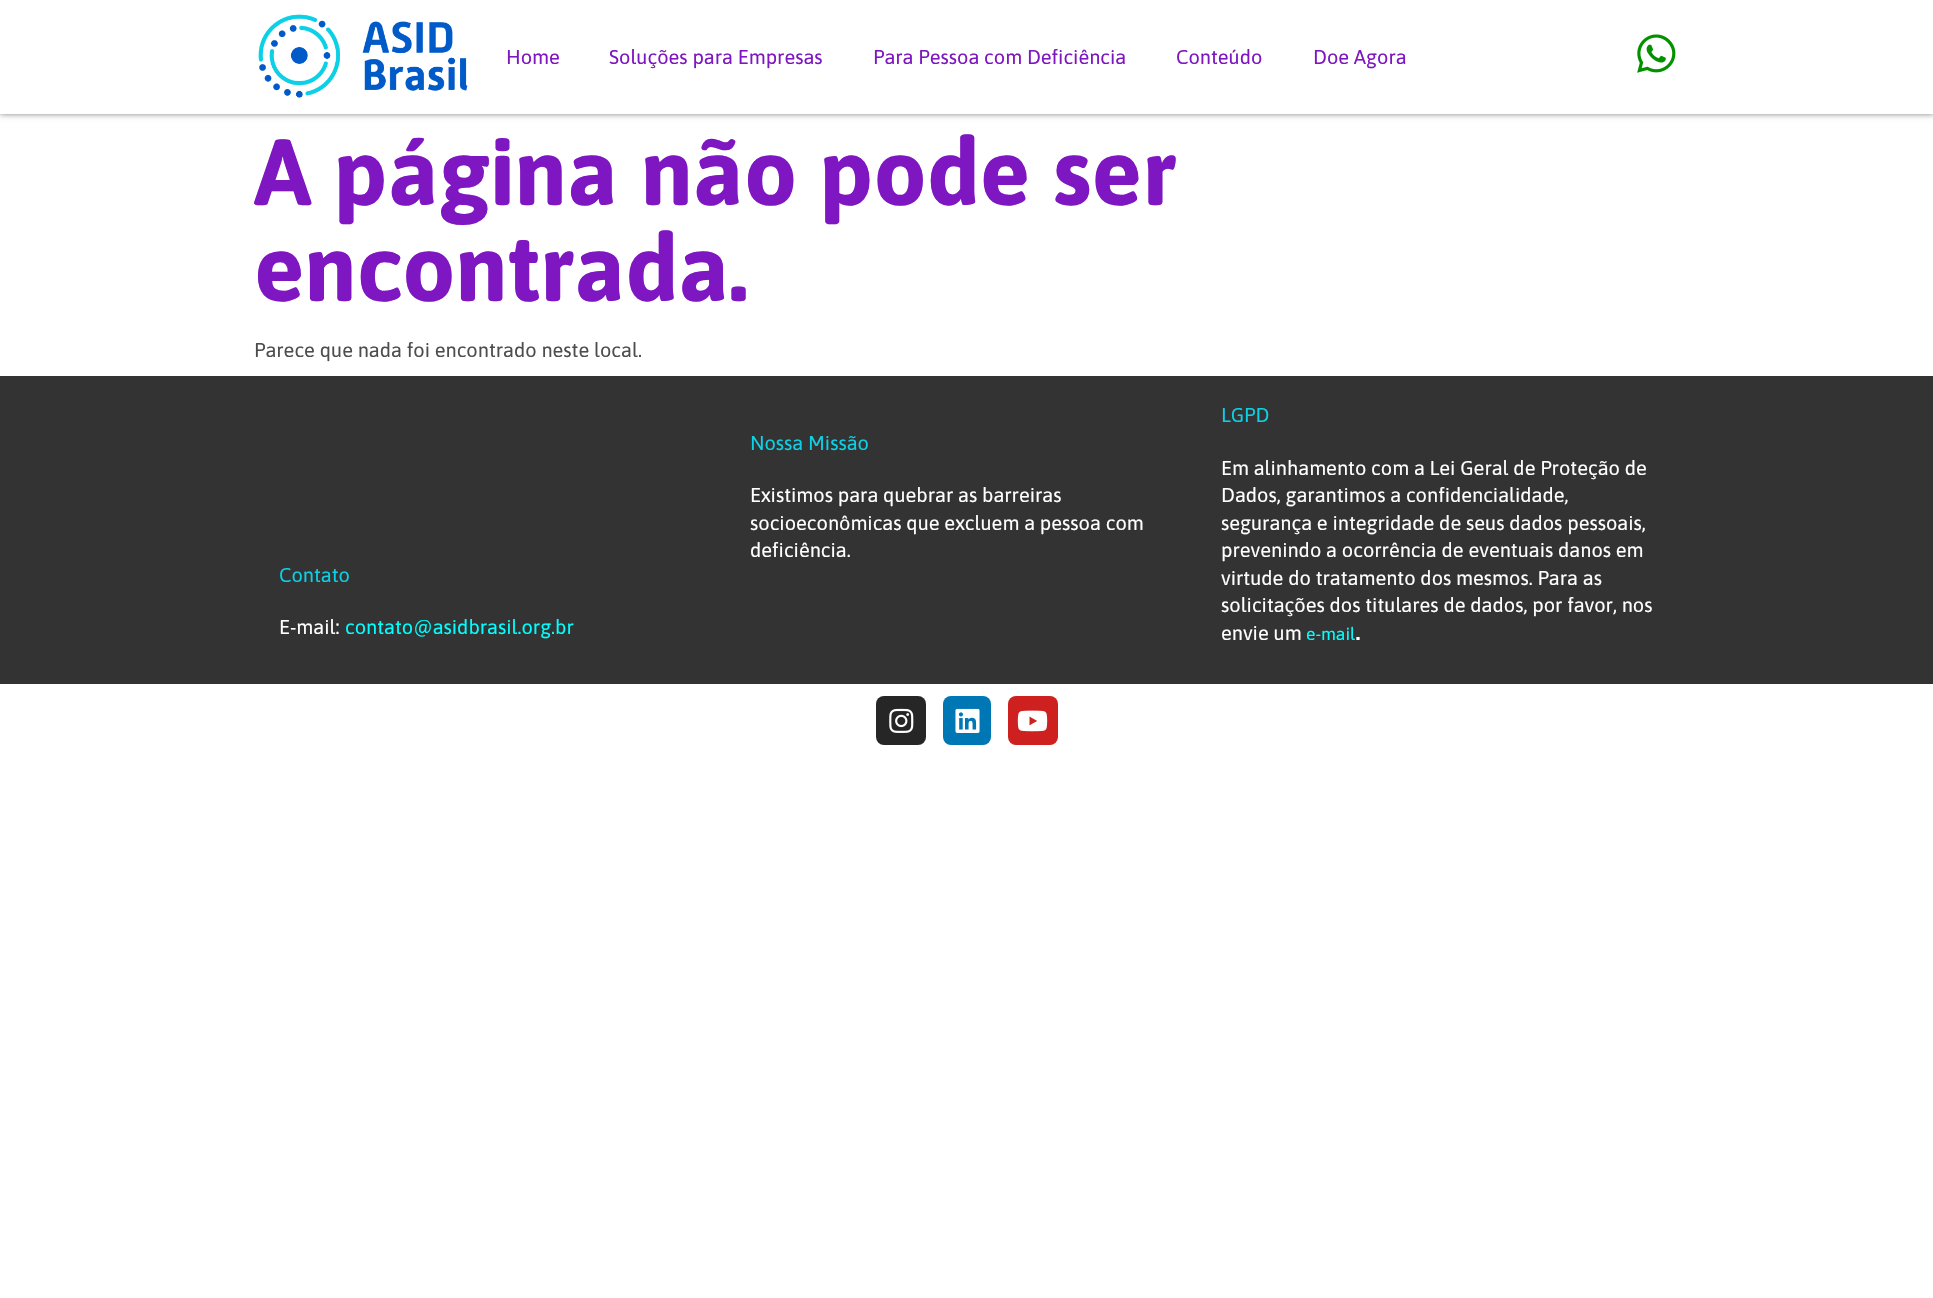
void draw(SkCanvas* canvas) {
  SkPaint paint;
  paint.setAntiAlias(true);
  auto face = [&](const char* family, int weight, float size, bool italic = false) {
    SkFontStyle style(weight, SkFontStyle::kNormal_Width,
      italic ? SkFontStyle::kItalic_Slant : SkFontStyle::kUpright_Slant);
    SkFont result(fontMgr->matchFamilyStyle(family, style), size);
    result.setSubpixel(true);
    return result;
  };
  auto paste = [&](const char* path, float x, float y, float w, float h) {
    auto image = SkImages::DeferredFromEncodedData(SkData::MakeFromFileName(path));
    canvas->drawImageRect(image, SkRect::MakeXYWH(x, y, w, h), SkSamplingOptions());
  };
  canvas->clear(0xffffffff);
  paint.setColor(0x80000000);
  paint.setMaskFilter(SkMaskFilter::MakeBlur(kNormal_SkBlurStyle, 3));
  canvas->drawRect(SkRect::MakeXYWH(0, 0, 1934, 114), paint);
  paint.setMaskFilter(nullptr);
  paint.setColor(0xffffffff);
  canvas->drawRect(SkRect::MakeXYWH(0, 0, 1933, 114), paint);
  paste("img/1.png", 258, 14, 210, 84);
  paste("img/2.png", 1637, 34, 39, 39);
  paint.setColor(0xff333333);
  canvas->drawRect(SkRect::MakeXYWH(0, 376, 1933, 308), paint);
  paint.setColor(0xff262626);
  canvas->drawRoundRect(SkRect::MakeXYWH(876, 696, 50, 49), 8, 8, paint);
  paste("img/3.png", 889, 708, 25, 25);
  paint.setColor(0xff0077b5);
  canvas->drawRoundRect(SkRect::MakeXYWH(943, 696, 48, 49), 8, 8, paint);
  paste("img/4.png", 955, 708, 25, 25);
  paint.setColor(0xffcd201f);
  canvas->drawRoundRect(SkRect::MakeXYWH(1008, 696, 50, 49), 8, 8, paint);
  paste("img/5.png", 1017, 710, 31, 22);
  auto f0 = face("Asap", 400, 20);
  paint.setColor(0xff7e16c1);
  {
    const struct { const char* s; float x, y; } items[] = {
      {"Home", 506, 64},
      {"Soluções para Empresas", 609, 64},
      {"Para Pessoa com Deficiência", 873, 64},
      {"Conteúdo", 1176, 64},
      {"Doe Agora", 1313, 64},
    };
    for (auto [s, x, y] : items) {
      canvas->drawString(s, x, y, f0, paint);
    }
  }
  auto f1 = face("Asap", 700, 93.75f);
  canvas->drawString("A página não pode ser", 254, 205, f1, paint);
  canvas->drawString("encontrada.", 254, 301, f1, paint);
  paint.setColor(0xff4d4d4d);
  canvas->drawString("Parece que nada foi encontrado neste local.", 254, 357, f0, paint);
  paint.setColor(0xff0cd0e5);
  canvas->drawString("Nossa Missão", 750, 450, f0, paint);
  paint.setColor(0xffffffff);
  {
    const struct { const char* s; float x, y; } items[] = {
      {"Existimos para quebrar as barreiras", 750, 502},
      {"socioeconômicas que excluem a pessoa com", 750, 530},
      {"deficiência.", 750, 557},
    };
    for (auto [s, x, y] : items) {
      canvas->drawString(s, x, y, f0, paint);
    }
  }
  paint.setColor(0xff0cd0e5);
  canvas->drawString("LGPD", 1221, 422, f0, paint);
  paint.setColor(0xffffffff);
  {
    const struct { const char* s; float x, y; } items[] = {
      {"Em alinhamento com a Lei Geral de Proteção de", 1221, 475},
      {"Dados, garantimos a confidencialidade,", 1221, 502},
      {"segurança e integridade de seus dados pessoais,", 1221, 530},
      {"prevenindo a ocorrência de eventuais danos em", 1221, 557},
      {"virtude do tratamento dos mesmos. Para as", 1221, 585},
      {"solicitações dos titulares de dados, por favor, nos", 1221, 612},
      {"envie um", 1221, 640},
    };
    for (auto [s, x, y] : items) {
      canvas->drawString(s, x, y, f0, paint);
    }
  }
  auto f2 = face("Asap", 400, 17.5f);
  paint.setColor(0xff00ffff);
  canvas->drawString("e-mail", 1306, 640, f2, paint);
  auto f3 = face("Asap", 700, 20);
  paint.setColor(0xffffffff);
  canvas->drawString(".", 1356, 640, f3, paint);
  paint.setColor(0xff0cd0e5);
  canvas->drawString("Contato", 279, 582, f0, paint);
  paint.setColor(0xffffffff);
  canvas->drawString("E-mail:", 279, 634, f0, paint);
  paint.setColor(0xff00ffff);
  canvas->drawString("contato@asidbrasil.org.br", 345, 634, f0, paint);
}
